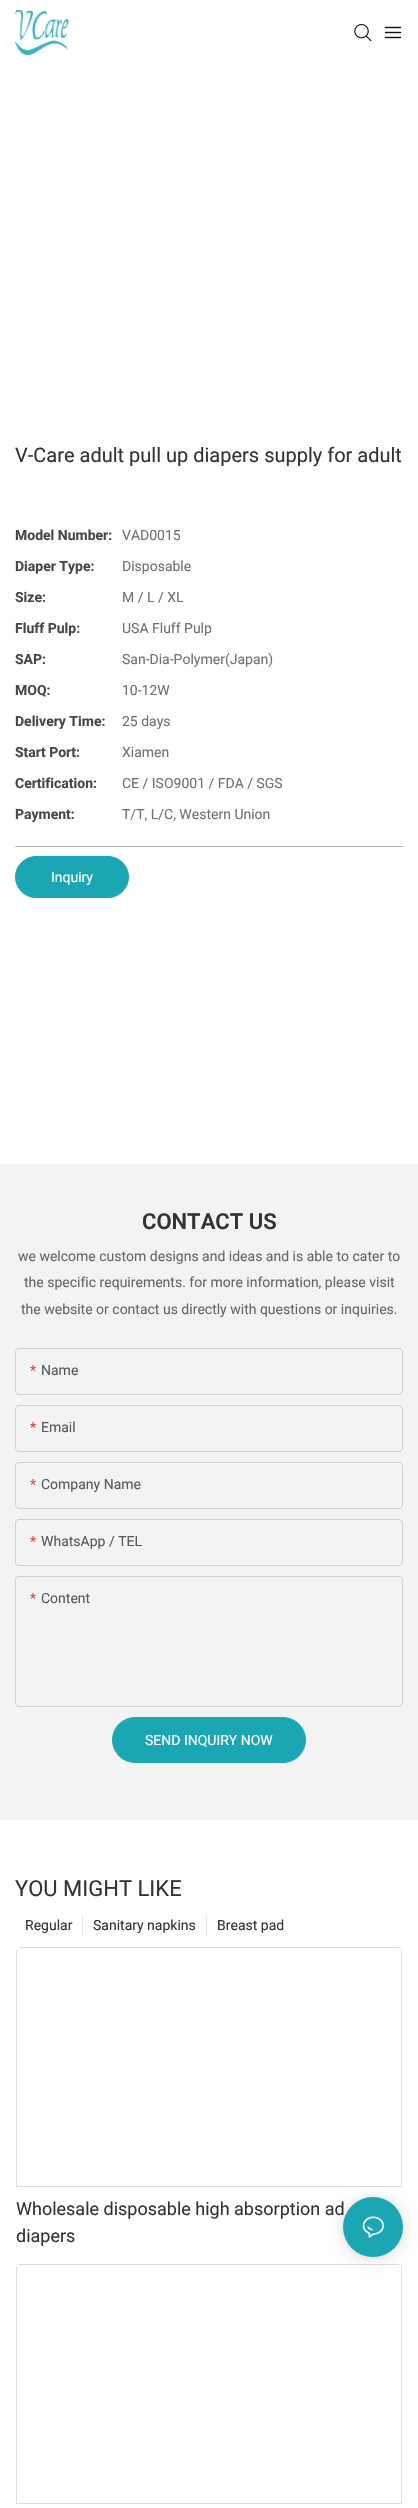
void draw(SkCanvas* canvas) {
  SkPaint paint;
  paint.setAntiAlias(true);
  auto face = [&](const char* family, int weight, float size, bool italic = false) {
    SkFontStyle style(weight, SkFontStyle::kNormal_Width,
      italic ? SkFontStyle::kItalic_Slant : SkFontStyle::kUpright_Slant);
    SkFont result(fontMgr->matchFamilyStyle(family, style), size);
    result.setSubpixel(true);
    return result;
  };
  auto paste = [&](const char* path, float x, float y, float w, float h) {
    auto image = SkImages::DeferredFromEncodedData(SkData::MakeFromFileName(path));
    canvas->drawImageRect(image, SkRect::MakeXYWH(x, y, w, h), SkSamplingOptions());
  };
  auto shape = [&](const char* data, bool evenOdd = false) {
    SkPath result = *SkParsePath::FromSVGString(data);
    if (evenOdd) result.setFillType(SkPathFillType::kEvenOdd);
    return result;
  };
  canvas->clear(0xffffffff);
  paste("img/1.png", 15, 10, 54, 45);
  paste("img/2.png", 354, 24, 18, 18);
  paste("img/3.png", 384, 26, 18, 13);
  paint.setColor(0xffb3b3b3);
  canvas->drawRect(SkRect::MakeXYWH(15, 846, 388, 1), paint);
  paint.setColor(0xff1aa7b3);
  canvas->drawRoundRect(SkRect::MakeXYWH(15.5f, 856.5f, 113, 41), 20.5f, 20.5f, paint);
  paint.setStroke(true);
  paint.setStrokeWidth(1);
  canvas->drawRoundRect(SkRect::MakeXYWH(15.5f, 856.5f, 113, 41), 20.5f, 20.5f, paint);
  paint.setStroke(false);
  paint.setColor(0xfff3f3f3);
  canvas->drawRect(SkRect::MakeXYWH(0, 1164, 418, 656), paint);
  paint.setStroke(true);
  paint.setColor(0xffcfcfcf);
  canvas->drawRoundRect(SkRect::MakeXYWH(15.5f, 1348.5f, 387, 46), 3.5f, 3.5f, paint);
  canvas->drawRoundRect(SkRect::MakeXYWH(15.5f, 1405.5f, 387, 46), 3.5f, 3.5f, paint);
  canvas->drawRoundRect(SkRect::MakeXYWH(15.5f, 1462.5f, 387, 46), 3.5f, 3.5f, paint);
  canvas->drawRoundRect(SkRect::MakeXYWH(15.5f, 1519.5f, 387, 46), 3.5f, 3.5f, paint);
  canvas->drawRoundRect(SkRect::MakeXYWH(15.5f, 1576.5f, 387, 130), 3.5f, 3.5f, paint);
  paint.setStroke(false);
  paint.setColor(0xff1aa7b3);
  canvas->drawRoundRect(SkRect::MakeXYWH(112.5f, 1717.5f, 193, 45), 22.5f, 22.5f, paint);
  paint.setStroke(true);
  canvas->drawRoundRect(SkRect::MakeXYWH(112.5f, 1717.5f, 193, 45), 22.5f, 22.5f, paint);
  paint.setStroke(false);
  paint.setColor(0xffe6e6e6);
  canvas->drawRect(SkRect::MakeXYWH(82, 1915, 1, 21), paint);
  canvas->drawRect(SkRect::MakeXYWH(206, 1915, 1, 21), paint);
  paint.setColor(0xffdddddd);
  canvas->drawPath(shape("M16 1951V2187H402V1951L401 1948V2186H17V1948ZM20 1947L17 1948H401L398 1947Z", true), paint);
  canvas->drawPath(shape("M16 2268V2504H402V2268L401 2265V2503H17V2265ZM20 2264L17 2265H401L398 2264Z", true), paint);
  paint.setColor(0x1f000000);
  paint.setMaskFilter(SkMaskFilter::MakeBlur(kNormal_SkBlurStyle, 8));
  canvas->drawRoundRect(SkRect::MakeXYWH(343, 2199, 60, 60), 30, 30, paint);
  paint.setMaskFilter(nullptr);
  paint.setColor(0x0f000000);
  paint.setMaskFilter(SkMaskFilter::MakeBlur(kNormal_SkBlurStyle, 2));
  canvas->drawRoundRect(SkRect::MakeXYWH(343, 2198, 60, 60), 30, 30, paint);
  paint.setMaskFilter(nullptr);
  auto f0 = face("Roboto", 400, 20);
  paint.setColor(0xff333333);
  canvas->drawString("V-Care adult pull up diapers supply for adult", 15, 462, f0, paint);
  auto f1 = face("Roboto", 700, 14);
  paint.setColor(0xff474747);
  canvas->drawString("Model Number:", 15, 540, f1, paint);
  auto f2 = face("Roboto", 400, 14);
  paint.setColor(0xff707070);
  canvas->drawString("VAD0015", 122, 540, f2, paint);
  paint.setColor(0xff474747);
  canvas->drawString("Diaper Type:", 15, 571, f1, paint);
  paint.setColor(0xff707070);
  canvas->drawString("Disposable", 122, 571, f2, paint);
  paint.setColor(0xff474747);
  canvas->drawString("Size:", 15, 602, f1, paint);
  paint.setColor(0xff707070);
  canvas->drawString("M / L / XL", 122, 602, f2, paint);
  paint.setColor(0xff474747);
  canvas->drawString("Fluff Pulp:", 15, 633, f1, paint);
  paint.setColor(0xff707070);
  canvas->drawString("USA Fluff Pulp", 122, 633, f2, paint);
  paint.setColor(0xff474747);
  canvas->drawString("SAP:", 15, 664, f1, paint);
  paint.setColor(0xff707070);
  canvas->drawString("San-Dia-Polymer(Japan)", 122, 664, f2, paint);
  paint.setColor(0xff474747);
  canvas->drawString("MOQ:", 15, 695, f1, paint);
  paint.setColor(0xff707070);
  canvas->drawString("10-12W", 122, 695, f2, paint);
  paint.setColor(0xff474747);
  canvas->drawString("Delivery Time:", 15, 726, f1, paint);
  paint.setColor(0xff707070);
  canvas->drawString("25 days", 122, 726, f2, paint);
  paint.setColor(0xff474747);
  canvas->drawString("Start Port:", 15, 757, f1, paint);
  paint.setColor(0xff707070);
  canvas->drawString("Xiamen", 122, 757, f2, paint);
  paint.setColor(0xff474747);
  canvas->drawString("Certification:", 15, 788, f1, paint);
  paint.setColor(0xff707070);
  canvas->drawString("CE / ISO9001 / FDA / SGS", 122, 788, f2, paint);
  paint.setColor(0xff474747);
  canvas->drawString("Payment:", 15, 819, f1, paint);
  paint.setColor(0xff707070);
  canvas->drawString("T/T, L/C, Western Union", 122, 819, f2, paint);
  paint.setColor(0xffffffff);
  canvas->drawString("Inquiry", 51, 882, f2, paint);
  auto f3 = face("Roboto", 600, 22);
  paint.setColor(0xff333333);
  canvas->drawString("CONTACT US", 142, 1229, f3, paint);
  paint.setColor(0xff666666);
  {
    const struct { const char* s; float x, y; } items[] = {
      {"we welcome custom designs and ideas and is able to cater to", 18, 1261},
      {"the specific requirements. for more information, please visit", 24, 1287},
      {"the website or contact us directly with questions or inquiries.", 21, 1314},
    };
    for (auto [s, x, y] : items) {
      canvas->drawString(s, x, y, f2, paint);
    }
  }
  paint.setColor(0xfffd3131);
  canvas->drawString("*", 30, 1375, f2, paint);
  paint.setColor(0xff595959);
  canvas->drawString("Name", 41, 1375, f2, paint);
  paint.setColor(0xfffd3131);
  canvas->drawString("*", 30, 1432, f2, paint);
  paint.setColor(0xff595959);
  canvas->drawString("Email", 41, 1432, f2, paint);
  paint.setColor(0xfffd3131);
  canvas->drawString("*", 30, 1489, f2, paint);
  paint.setColor(0xff595959);
  canvas->drawString("Company Name", 41, 1489, f2, paint);
  paint.setColor(0xfffd3131);
  canvas->drawString("*", 30, 1546, f2, paint);
  paint.setColor(0xff595959);
  canvas->drawString("WhatsApp / TEL", 41, 1546, f2, paint);
  paint.setColor(0xfffd3131);
  canvas->drawString("*", 30, 1603, f2, paint);
  paint.setColor(0xff595959);
  canvas->drawString("Content", 41, 1603, f2, paint);
  paint.setColor(0xffffffff);
  canvas->drawString("SEND INQUIRY NOW", 145, 1745, f2, paint);
  auto f4 = face("Roboto", 400, 22);
  paint.setColor(0xff333333);
  canvas->drawString("YOU MIGHT LIKE", 15, 1896, f4, paint);
  {
    const struct { const char* s; float x, y; } items[] = {
      {"Regular", 25, 1930},
      {"Sanitary napkins", 93, 1930},
      {"Breast pad", 217, 1930},
    };
    for (auto [s, x, y] : items) {
      canvas->drawString(s, x, y, f2, paint);
    }
  }
  auto f5 = face("Roboto", 400, 18);
  canvas->drawString("Wholesale disposable high absorption ad", 16, 2215, f5, paint);
  canvas->drawString("diapers", 16, 2242, f5, paint);
  paint.setColor(0xff1aa7b3);
  canvas->drawCircle(373, 2227, 30, paint);
  paste("img/4.png", 362, 2216, 22, 22);
}
